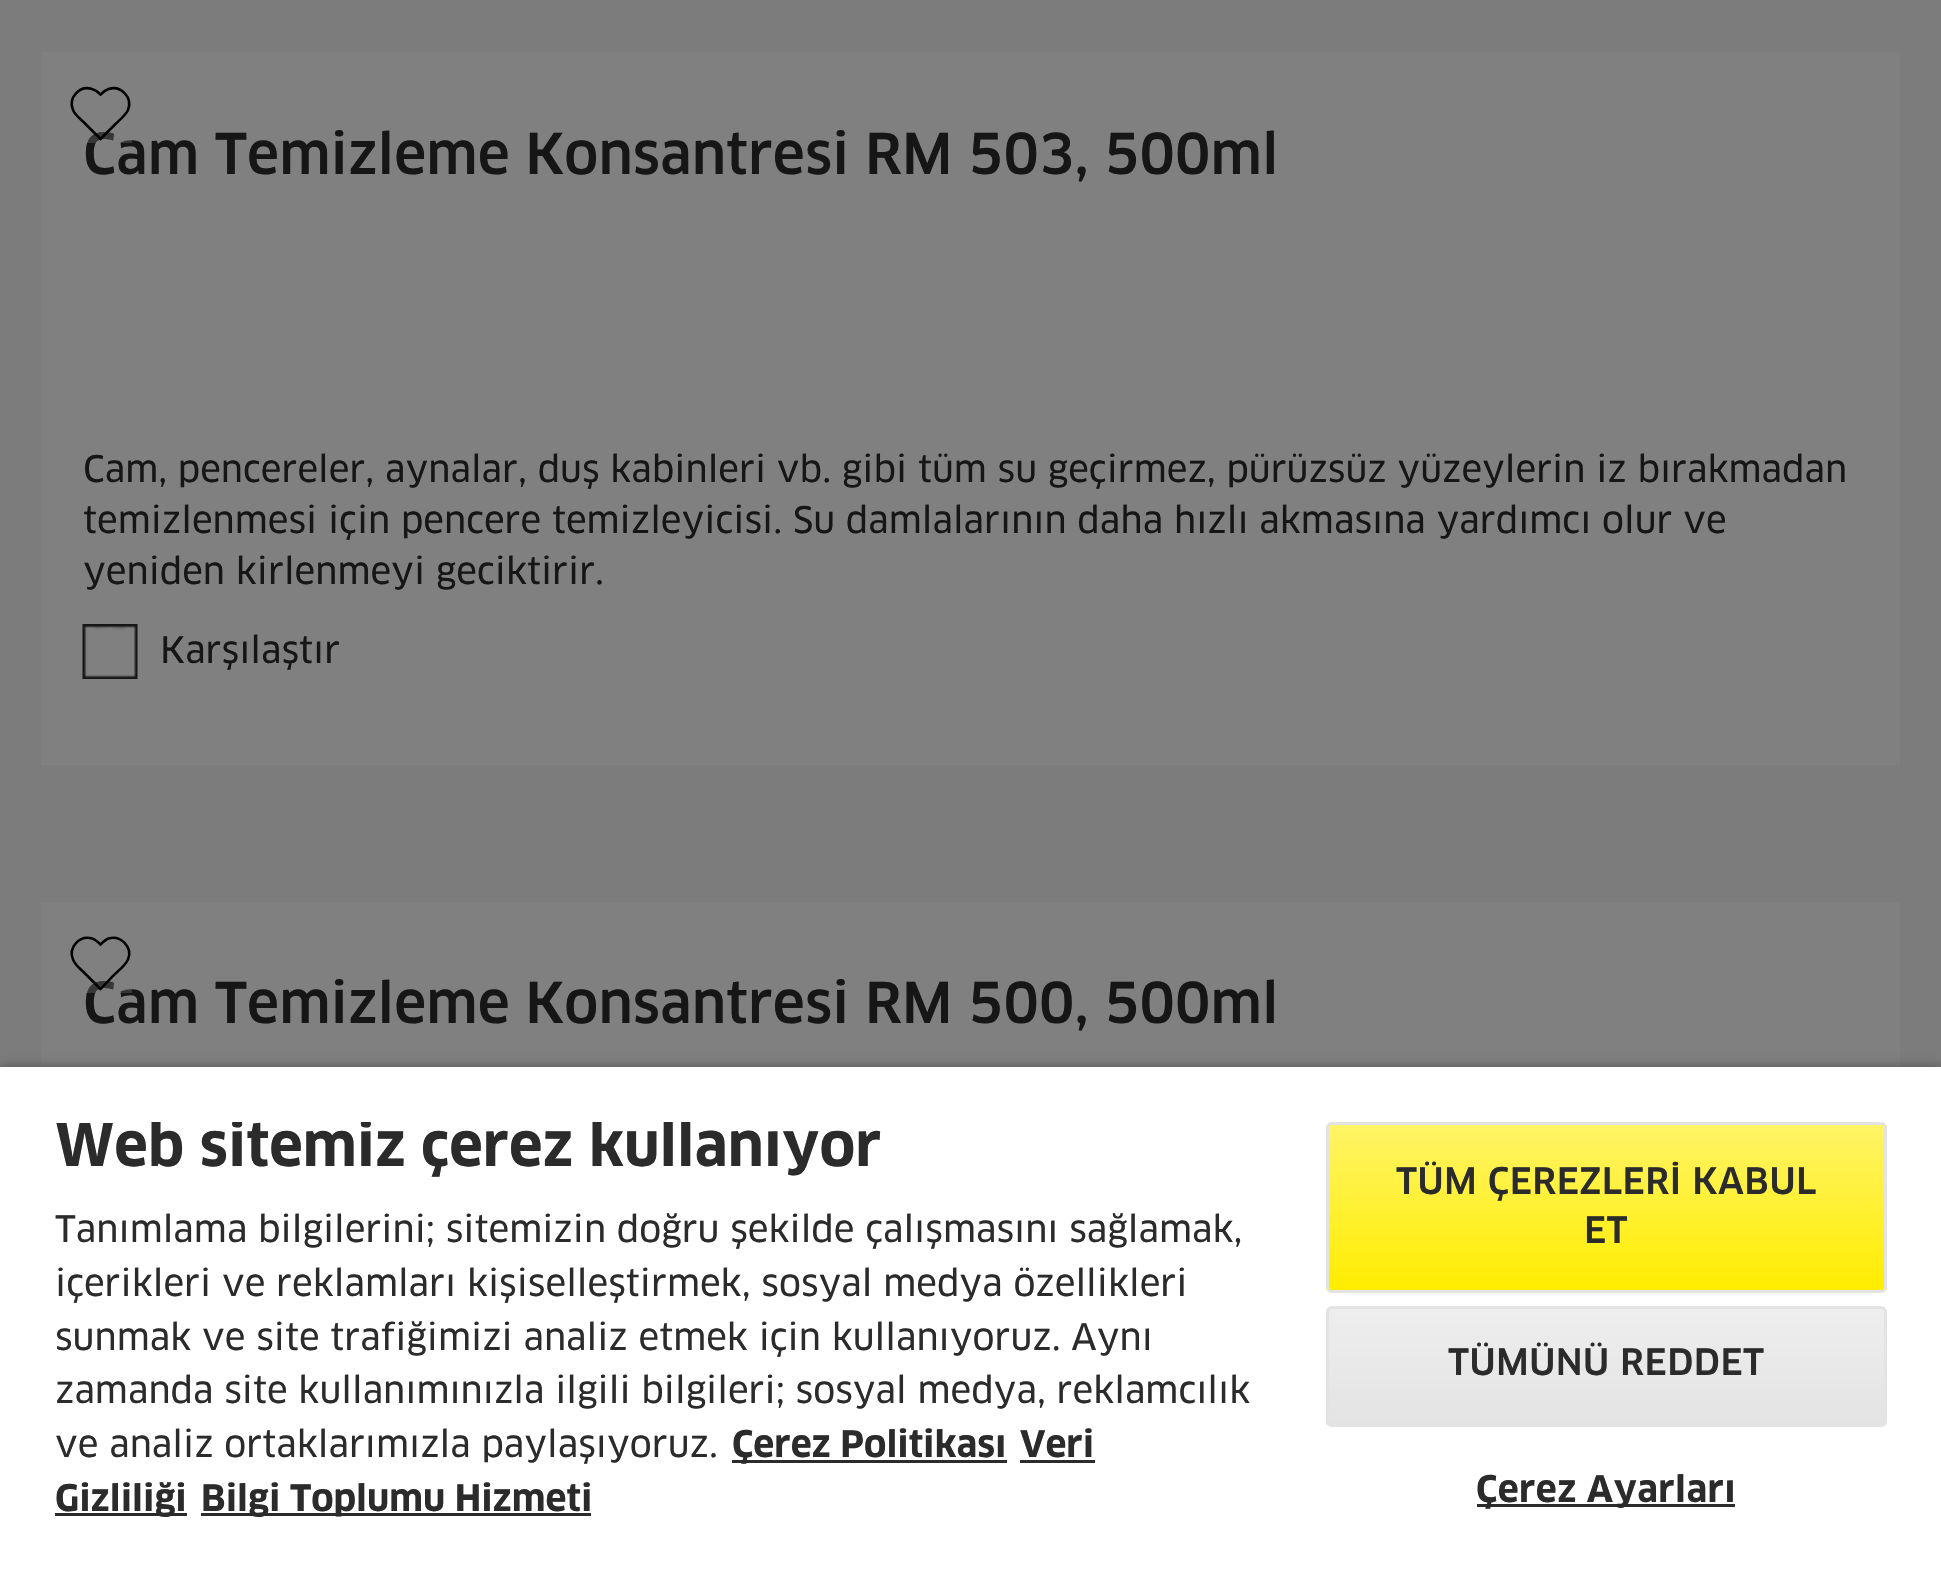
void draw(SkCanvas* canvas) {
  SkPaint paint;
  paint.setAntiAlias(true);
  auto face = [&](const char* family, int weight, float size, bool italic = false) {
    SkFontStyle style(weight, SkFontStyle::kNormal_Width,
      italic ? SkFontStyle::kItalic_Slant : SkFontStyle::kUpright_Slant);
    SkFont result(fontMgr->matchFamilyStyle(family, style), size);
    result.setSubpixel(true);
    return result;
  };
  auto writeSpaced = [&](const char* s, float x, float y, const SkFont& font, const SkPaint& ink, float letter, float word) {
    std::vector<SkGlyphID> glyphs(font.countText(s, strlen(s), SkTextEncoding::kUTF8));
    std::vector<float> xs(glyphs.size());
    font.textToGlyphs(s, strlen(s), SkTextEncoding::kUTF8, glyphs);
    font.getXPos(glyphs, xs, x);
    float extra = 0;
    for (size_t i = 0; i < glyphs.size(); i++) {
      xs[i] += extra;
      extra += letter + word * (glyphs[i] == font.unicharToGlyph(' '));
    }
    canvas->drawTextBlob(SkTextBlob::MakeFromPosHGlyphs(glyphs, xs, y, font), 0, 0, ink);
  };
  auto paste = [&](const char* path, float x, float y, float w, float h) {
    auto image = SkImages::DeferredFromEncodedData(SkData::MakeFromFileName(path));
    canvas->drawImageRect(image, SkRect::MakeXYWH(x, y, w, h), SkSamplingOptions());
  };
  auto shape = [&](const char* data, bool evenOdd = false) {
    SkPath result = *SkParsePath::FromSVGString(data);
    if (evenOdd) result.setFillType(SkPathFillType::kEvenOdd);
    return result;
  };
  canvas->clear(0xff7c7c7c);
  paint.setColor(0xff808080);
  canvas->drawRect(SkRect::MakeXYWH(41, 52, 1859, 713), paint);
  paste("img/1.png", 82, 624, 56, 55);
  canvas->drawRect(SkRect::MakeXYWH(41, 902, 1859, 165), paint);
  paint.setColor(0x59000000);
  paint.setMaskFilter(SkMaskFilter::MakeBlur(kNormal_SkBlurStyle, 5.5f));
  canvas->drawRect(SkRect::MakeXYWH(0, 1067, 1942, 503), paint);
  paint.setMaskFilter(nullptr);
  {
    const struct { float x, y, w, h; SkColor color; } items[] = {
      {0, 1067, 1941, 503, 0xffffffff},
      {732, 1460, 275, 3, 0xff2b2b2b},
      {1020, 1460, 75, 3, 0xff2b2b2b},
      {55, 1513, 132, 3, 0xff2b2b2b},
      {201, 1513, 390, 3, 0xff2b2b2b},
    };
    for (auto [x, y, w, h, color] : items) {
      paint.setColor(color);
      canvas->drawRect(SkRect::MakeXYWH(x, y, w, h), paint);
    }
  }
  canvas->save();
  canvas->clipPath(shape("M1332 1122H1881C1884.5 1122 1887 1124.5 1887 1128V1287C1887 1290.5 1884.5 1293 1881 1293H1332C1328.5 1293 1326 1290.5 1326 1287V1128C1326 1124.5 1328.5 1122 1332 1122Z"), true);
  {
    const SkColor colors[] = {0xffffed00, 0xfffff466};
    const float stops[] = {0, 1};
    const SkPoint ends[] = {{1606, 1290}, {1606, 1125}};
    paint.setShader(SkGradientShader::MakeLinear(ends, colors, stops, 2, SkTileMode::kClamp));
    paint.setAlpha(255);
  }
  canvas->drawRect(SkRect::MakeXYWH(1326, 1125, 561, 165), paint);
  canvas->restore();
  paint.setStroke(true);
  paint.setStrokeWidth(3);
  paint.setShader(nullptr);
  paint.setColor(0xffe3e3e3);
  canvas->drawRoundRect(SkRect::MakeXYWH(1327.5f, 1123.5f, 558, 168), 4.5f, 4.5f, paint);
  canvas->save();
  canvas->clipPath(shape("M1332 1306H1881C1884.5 1306 1887 1308.5 1887 1312V1421C1887 1424.5 1884.5 1427 1881 1427H1332C1328.5 1427 1326 1424.5 1326 1421V1312C1326 1308.5 1328.5 1306 1332 1306Z"), true);
  paint.setStroke(false);
  {
    const SkColor colors[] = {0xffe3e3e3, 0xffeeeeee};
    const float stops[] = {0, 1};
    const SkPoint ends[] = {{1328, 1425}, {1328, 1309}};
    paint.setShader(SkGradientShader::MakeLinear(ends, colors, stops, 2, SkTileMode::kClamp));
    paint.setAlpha(255);
  }
  canvas->drawRect(SkRect::MakeXYWH(1326, 1309, 561, 116), paint);
  canvas->restore();
  paint.setStroke(true);
  paint.setShader(nullptr);
  paint.setColor(0xffe3e3e3);
  canvas->drawRoundRect(SkRect::MakeXYWH(1327.5f, 1307.5f, 558, 118), 4.5f, 4.5f, paint);
  paint.setStroke(false);
  paint.setColor(0xff2b2b2b);
  canvas->drawRect(SkRect::MakeXYWH(1477, 1504, 258, 3), paint);
  auto f0 = face("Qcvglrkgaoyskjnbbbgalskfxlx", 500, 55);
  paint.setColor(0xff161616);
  canvas->drawString("Cam Temizleme Konsantresi RM 503, 500ml", 83, 174, f0, paint);
  paint.setColor(0x4d808080);
  canvas->drawRect(SkRect::MakeXYWH(86, 132, 46, 11), paint);
  paint.setStroke(true);
  paint.setStrokeWidth(2.5f);
  paint.setColor(0xff000000);
  canvas->drawPath(shape("M100.5 139L84.5 123C80.5 119 75 115 73 110C68 97.5 79.5 85 92 89C95.5 90 98 92 100.5 94.5C103 92 105.5 90 108.5 89C121 85 133 97.5 128 110C125.5 115.5 120 119.5 115.5 124Z"), paint);
  auto f1 = face("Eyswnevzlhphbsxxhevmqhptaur", 400, 35.75f);
  paint.setStroke(false);
  paint.setColor(0xff161616);
  {
    const struct { const char* s; float x, y; } items[] = {
      {"Cam, pencereler, aynalar, duş kabinleri vb. gibi tüm su geçirmez, pürüzsüz yüzeylerin iz bırakmadan", 83, 482},
      {"temizlenmesi için pencere temizleyicisi. Su damlalarının daha hızlı akmasına yardımcı olur ve", 83, 533},
      {"yeniden kirlenmeyi geciktirir.", 83, 584},
      {"Karşılaştır", 160, 663},
    };
    for (auto [s, x, y] : items) {
      canvas->drawString(s, x, y, f1, paint);
    }
  }
  canvas->drawString("Cam Temizleme Konsantresi RM 500, 500ml", 83, 1023, f0, paint);
  paint.setColor(0x4d808080);
  canvas->drawRect(SkRect::MakeXYWH(86, 981, 46, 12), paint);
  paint.setStroke(true);
  paint.setColor(0xff000000);
  canvas->drawPath(shape("M100.5 989L84.5 973C80.5 969 75 965 73 959.5C68 947.5 79.5 935 92 938.5C95.5 939.5 98 942 100.5 944.5C103 942 105.5 939.5 108.5 938.5C121 935 133 947.5 128 959.5C125.5 965 120 969.5 115.5 973.5Z"), paint);
  canvas->save();
  canvas->clipRect(SkRect::MakeXYWH(55, 1122, 1196, 407));
  auto f2 = face("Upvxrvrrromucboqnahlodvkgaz", 700, 57.25f);
  paint.setStroke(false);
  paint.setColor(0xff2b2b2b);
  canvas->drawString("Web sitemiz çerez kullanıyor", 55, 1166, f2, paint);
  canvas->restore();
  {
    const struct { const char* s; float x, y; } items[] = {
      {"Tanımlama bilgilerini; sitemizin doğru şekilde çalışmasını sağlamak,", 55, 1242},
      {"içerikleri ve reklamları kişiselleştirmek, sosyal medya özellikleri", 55, 1296},
      {"sunmak ve site trafiğimizi analiz etmek için kullanıyoruz. Aynı", 55, 1350},
      {"zamanda site kullanımınızla ilgili bilgileri; sosyal medya, reklamcılık", 55, 1403},
      {"ve analiz ortaklarımızla paylaşıyoruz.", 55, 1457},
    };
    for (auto [s, x, y] : items) {
      canvas->drawString(s, x, y, f1, paint);
    }
  }
  auto f3 = face("Upvxrvrrromucboqnahlodvkgaz", 700, 35.75f);
  {
    const struct { const char* s; float x, y; } items[] = {
      {"Çerez Politikası", 732, 1457},
      {"Veri", 1020, 1457},
      {"Gizliliği", 55, 1511},
      {"Bilgi Toplumu Hizmeti", 201, 1511},
    };
    for (auto [s, x, y] : items) {
      canvas->drawString(s, x, y, f3, paint);
    }
  }
  auto f4 = face("Qcvglrkgaoyskjnbbbgalskfxlx", 500, 35.75f);
  {
    const struct { const char* s; float x, y; } items[] = {
      {"TÜM ÇEREZLERİ KABUL", 1396, 1194},
      {"ET", 1584, 1243},
      {"TÜMÜNÜ REDDET", 1448, 1375},
    };
    for (auto [s, x, y] : items) {
      writeSpaced(s, x, y, f4, paint, 0.4f, 0);
    }
  }
  writeSpaced("Çerez Ayarları", 1476, 1502, f3, paint, 0.4f, 0);
}
